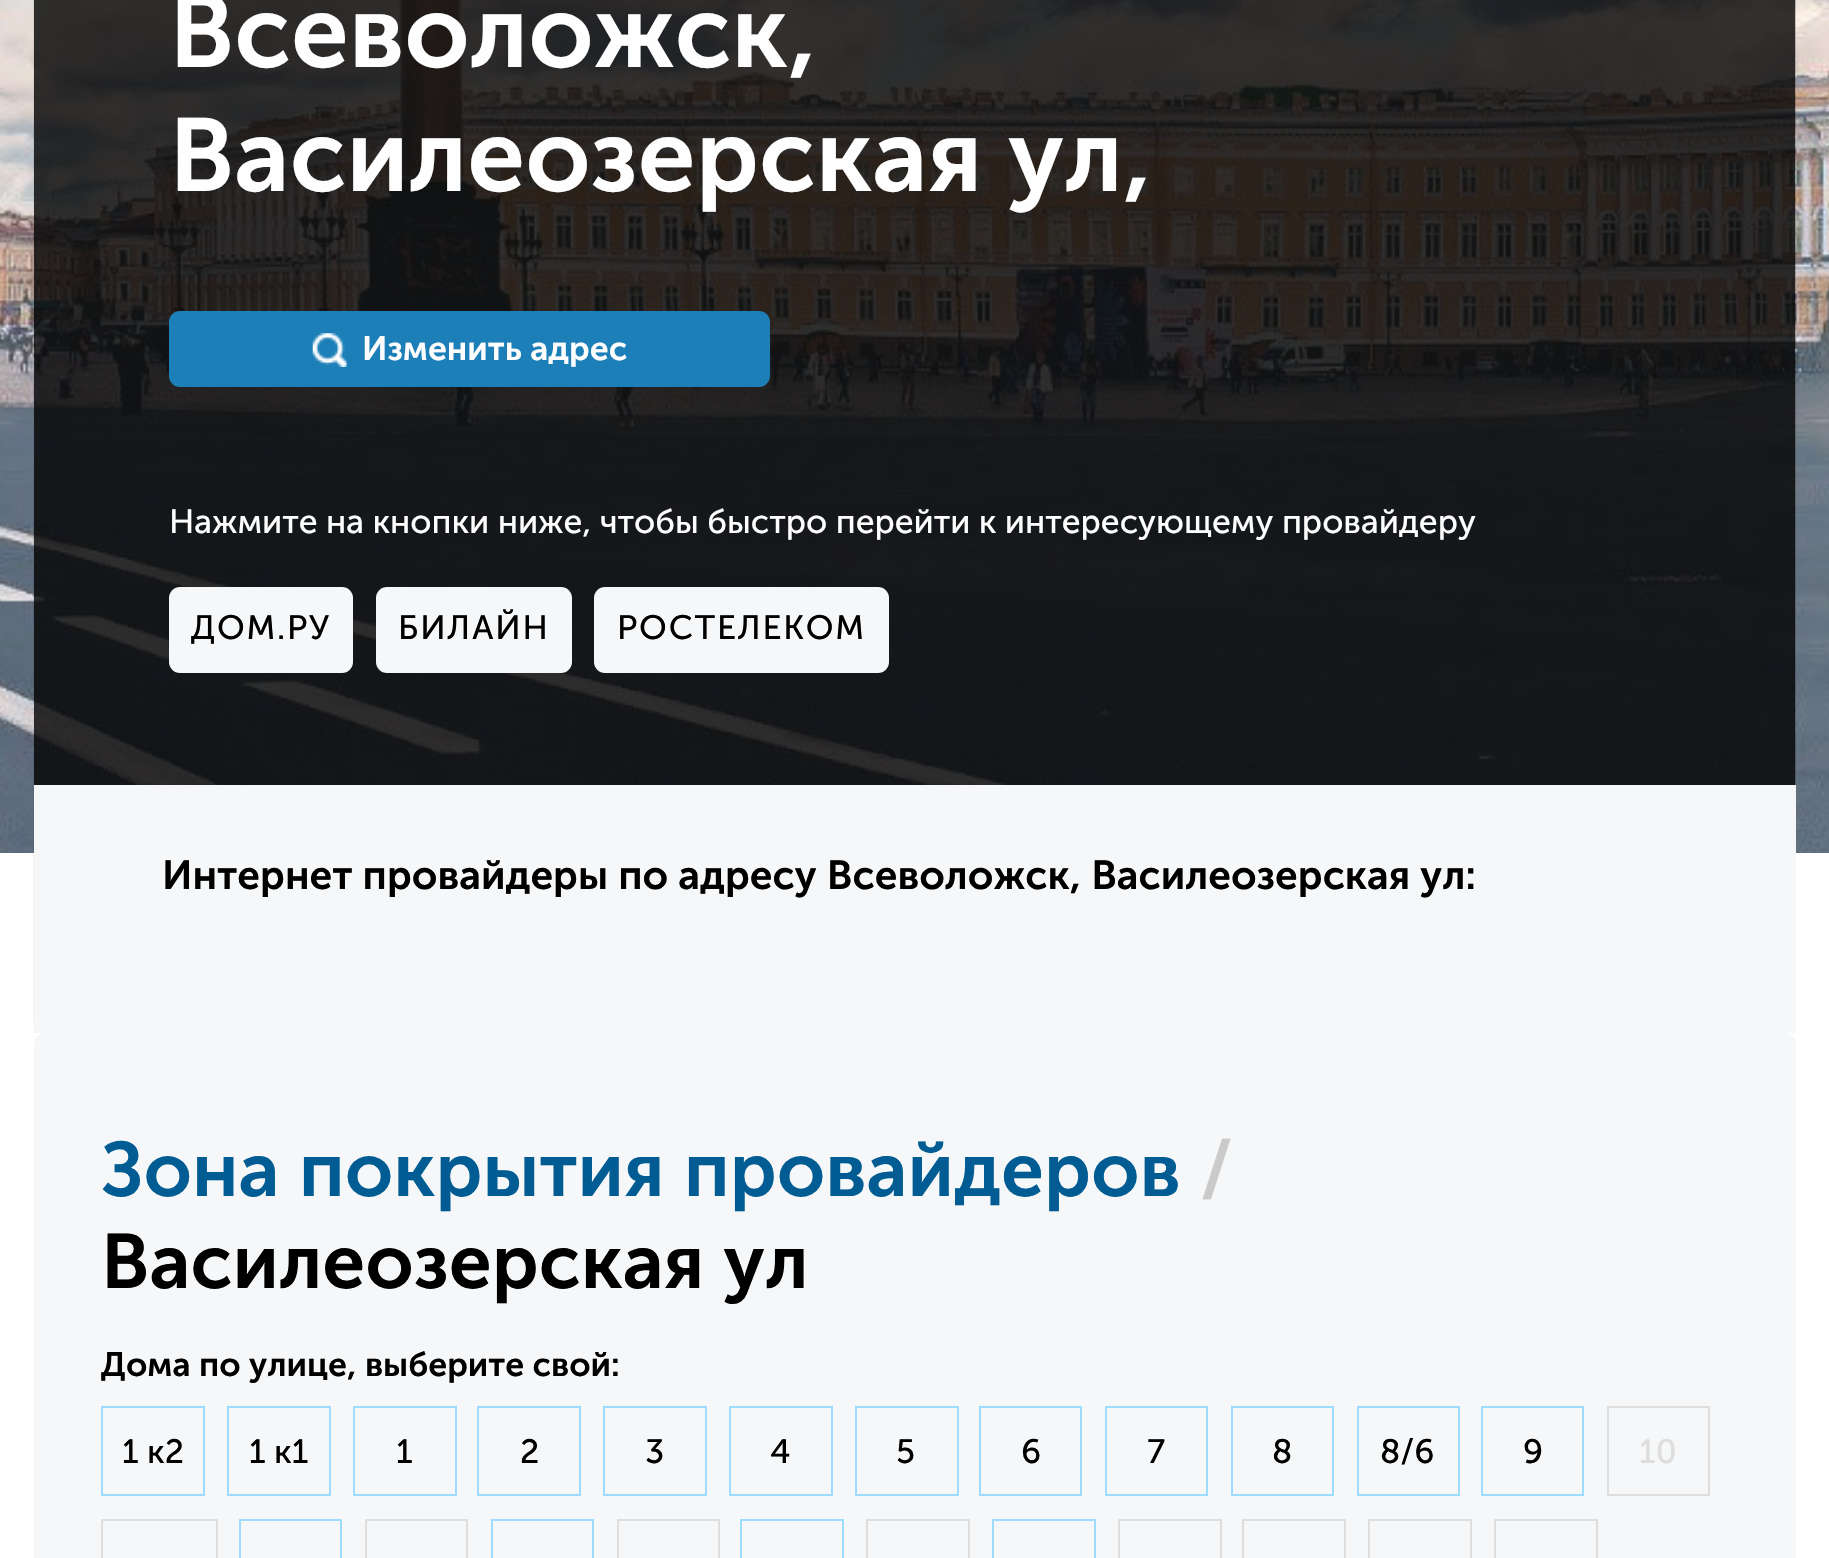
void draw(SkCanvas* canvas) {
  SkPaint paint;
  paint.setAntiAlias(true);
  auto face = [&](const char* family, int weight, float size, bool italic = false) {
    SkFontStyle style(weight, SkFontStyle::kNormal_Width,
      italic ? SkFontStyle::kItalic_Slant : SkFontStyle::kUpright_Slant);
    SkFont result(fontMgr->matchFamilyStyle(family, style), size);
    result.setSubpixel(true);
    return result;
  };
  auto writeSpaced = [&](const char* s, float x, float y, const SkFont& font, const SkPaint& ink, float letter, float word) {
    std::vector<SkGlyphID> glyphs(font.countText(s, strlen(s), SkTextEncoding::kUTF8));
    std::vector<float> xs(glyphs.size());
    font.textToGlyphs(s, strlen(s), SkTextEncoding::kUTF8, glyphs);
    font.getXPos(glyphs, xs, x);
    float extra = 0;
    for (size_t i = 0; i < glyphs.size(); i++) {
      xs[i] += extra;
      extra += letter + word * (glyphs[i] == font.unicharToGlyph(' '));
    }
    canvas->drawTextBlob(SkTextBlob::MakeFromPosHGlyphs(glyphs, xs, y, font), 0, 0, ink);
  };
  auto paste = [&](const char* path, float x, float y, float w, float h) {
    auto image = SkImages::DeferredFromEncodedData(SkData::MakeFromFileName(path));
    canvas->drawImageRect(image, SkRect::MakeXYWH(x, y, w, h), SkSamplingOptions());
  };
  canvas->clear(0xffffffff);
  paste("img/1.png", 0, 0, 1829, 853);
  paste("img/2.png", 33, 0, 1763, 1023);
  paint.setColor(0xff1d7fb7);
  canvas->drawRoundRect(SkRect::MakeXYWH(169, 311, 601, 76), 11, 11, paint);
  paste("img/3.png", 312, 333, 35, 34);
  paint.setColor(0xfff6f7f8);
  canvas->drawRoundRect(SkRect::MakeXYWH(169, 587, 184, 86), 11, 11, paint);
  canvas->drawRoundRect(SkRect::MakeXYWH(376, 587, 196, 86), 11, 11, paint);
  canvas->drawRoundRect(SkRect::MakeXYWH(594, 587, 295, 86), 11, 11, paint);
  canvas->drawRect(SkRect::MakeXYWH(34, 785, 1762, 248), paint);
  canvas->drawRoundRect(SkRect::MakeXYWH(34, 1033, 1762, 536), 11, 11, paint);
  paint.setStroke(true);
  paint.setStrokeWidth(2);
  paint.setColor(0xff9ddbff);
  canvas->drawRect(SkRect::MakeXYWH(102, 1407, 102, 88), paint);
  canvas->drawRect(SkRect::MakeXYWH(228, 1407, 102, 88), paint);
  canvas->drawRect(SkRect::MakeXYWH(354, 1407, 102, 88), paint);
  canvas->drawRect(SkRect::MakeXYWH(478, 1407, 102, 88), paint);
  canvas->drawRect(SkRect::MakeXYWH(604, 1407, 102, 88), paint);
  canvas->drawRect(SkRect::MakeXYWH(730, 1407, 102, 88), paint);
  canvas->drawRect(SkRect::MakeXYWH(856, 1407, 102, 88), paint);
  canvas->drawRect(SkRect::MakeXYWH(980, 1407, 101, 88), paint);
  canvas->drawRect(SkRect::MakeXYWH(1106, 1407, 101, 88), paint);
  canvas->drawRect(SkRect::MakeXYWH(1232, 1407, 101, 88), paint);
  canvas->drawRect(SkRect::MakeXYWH(1358, 1407, 101, 88), paint);
  canvas->drawRect(SkRect::MakeXYWH(1482, 1407, 101, 88), paint);
  paint.setColor(0xffdedede);
  canvas->drawRect(SkRect::MakeXYWH(1608, 1407, 101, 88), paint);
  canvas->drawRect(SkRect::MakeXYWH(102, 1520, 115, 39), paint);
  paint.setColor(0xff9ddbff);
  canvas->drawRect(SkRect::MakeXYWH(240, 1520, 101, 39), paint);
  paint.setColor(0xffdedede);
  canvas->drawRect(SkRect::MakeXYWH(366, 1520, 101, 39), paint);
  paint.setColor(0xff9ddbff);
  canvas->drawRect(SkRect::MakeXYWH(492, 1520, 101, 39), paint);
  paint.setColor(0xffdedede);
  canvas->drawRect(SkRect::MakeXYWH(618, 1520, 101, 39), paint);
  paint.setColor(0xff9ddbff);
  canvas->drawRect(SkRect::MakeXYWH(741, 1520, 102, 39), paint);
  paint.setColor(0xffdedede);
  canvas->drawRect(SkRect::MakeXYWH(867, 1520, 102, 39), paint);
  paint.setColor(0xff9ddbff);
  canvas->drawRect(SkRect::MakeXYWH(993, 1520, 102, 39), paint);
  paint.setColor(0xffdedede);
  canvas->drawRect(SkRect::MakeXYWH(1119, 1520, 102, 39), paint);
  canvas->drawRect(SkRect::MakeXYWH(1243, 1520, 102, 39), paint);
  canvas->drawRect(SkRect::MakeXYWH(1369, 1520, 102, 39), paint);
  canvas->drawRect(SkRect::MakeXYWH(1495, 1520, 102, 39), paint);
  auto f0 = face("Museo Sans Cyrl", 600, 103.25f);
  paint.setStroke(false);
  paint.setColor(0xfffefefe);
  canvas->drawString("Всеволожск,", 169, 67, f0, paint);
  canvas->drawString("Василеозерская ул,", 169, 191, f0, paint);
  auto f1 = face("Museo Sans Cyrl", 600, 33.75f);
  canvas->drawString("Изменить адрес", 362, 360, f1, paint);
  auto f2 = face("Museo Sans Cyrl", 400, 33.75f);
  canvas->drawString("Нажмите на кнопки ниже, чтобы быстро перейти к интересующему провайдеру", 169, 533, f2, paint);
  paint.setColor(0xff000000);
  {
    const struct { const char* s; float x, y; } items[] = {
      {"ДОМ.РУ", 191, 639},
      {"БИЛАЙН", 398, 639},
      {"РОСТЕЛЕКОМ", 617, 639},
    };
    for (auto [s, x, y] : items) {
      writeSpaced(s, x, y, f2, paint, 1.75f, 0);
    }
  }
  auto f3 = face("Museo Sans Cyrl", 600, 40.5f);
  canvas->drawString("Интернет провайдеры по адресу Всеволожск, Василеозерская ул:", 162, 889, f3, paint);
  auto f4 = face("Museo Sans Cyrl", 600, 76.6f);
  paint.setColor(0xff005c92);
  canvas->drawString("Зона покрытия провайдеров", 101, 1196, f4, paint);
  paint.setColor(0xffcacaca);
  canvas->drawString("/", 1200, 1196, f4, paint);
  paint.setColor(0xff000000);
  canvas->drawString("Василеозерская ул", 101, 1288, f4, paint);
  canvas->drawString("Дома по улице, выберите свой:", 101, 1376, f1, paint);
  {
    const struct { const char* s; float x, y; } items[] = {
      {"1 к2", 122, 1463},
      {"1 к1", 249, 1463},
      {"1", 396, 1463},
      {"2", 520, 1463},
      {"3", 645, 1463},
      {"4", 770, 1463},
      {"5", 896, 1463},
      {"6", 1021, 1463},
      {"7", 1147, 1463},
      {"8", 1272, 1463},
      {"8/6", 1380, 1463},
      {"9", 1523, 1463},
    };
    for (auto [s, x, y] : items) {
      canvas->drawString(s, x, y, f2, paint);
    }
  }
  paint.setColor(0xffdedede);
  canvas->drawString("10", 1639, 1463, f2, paint);
}
